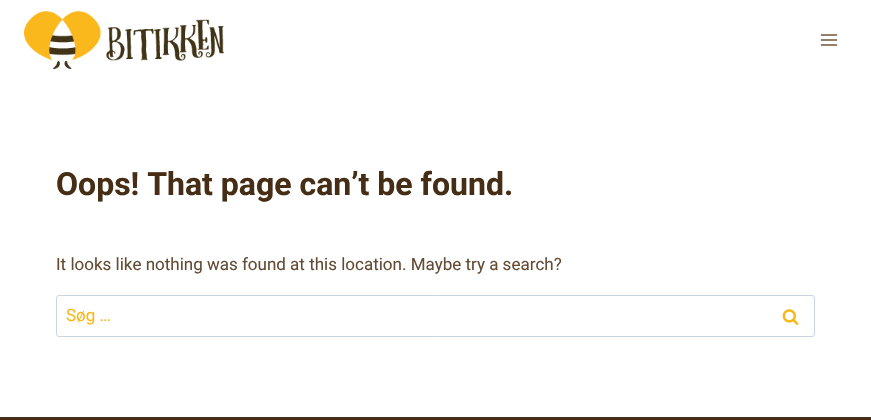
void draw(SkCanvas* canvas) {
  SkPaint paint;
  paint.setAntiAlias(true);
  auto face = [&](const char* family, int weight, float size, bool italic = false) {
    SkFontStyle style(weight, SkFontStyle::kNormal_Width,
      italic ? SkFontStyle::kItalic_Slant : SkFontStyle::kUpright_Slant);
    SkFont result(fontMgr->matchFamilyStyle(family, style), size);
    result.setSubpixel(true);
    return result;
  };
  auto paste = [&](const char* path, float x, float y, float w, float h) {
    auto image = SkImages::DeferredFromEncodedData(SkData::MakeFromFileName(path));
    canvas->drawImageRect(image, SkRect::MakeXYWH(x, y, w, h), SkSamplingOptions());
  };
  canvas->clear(0xffffffff);
  paste("img/1.png", 24, 11, 200, 58);
  paste("img/2.png", 820, 34, 18, 12);
  paint.setStroke(true);
  paint.setStrokeWidth(1);
  paint.setColor(0xffcbd5e0);
  canvas->drawRoundRect(SkRect::MakeXYWH(56.5f, 295.5f, 758, 41), 2.5f, 2.5f, paint);
  paste("img/3.png", 782, 309, 17, 16);
  paint.setStroke(false);
  paint.setColor(0xff462e16);
  canvas->drawRect(SkRect::MakeXYWH(0, 417, 871, 3), paint);
  auto f0 = face("Roboto", 700, 32);
  canvas->drawString("Oops! That page can’t be found.", 56, 195, f0, paint);
  auto f1 = face("Roboto", 400, 17);
  paint.setColor(0xff644c34);
  canvas->drawString("It looks like nothing was found at this location. Maybe try a search?", 56, 270, f1, paint);
  paint.setColor(0xfff8b717);
  canvas->drawString("Søg …", 66, 321, f1, paint);
}
